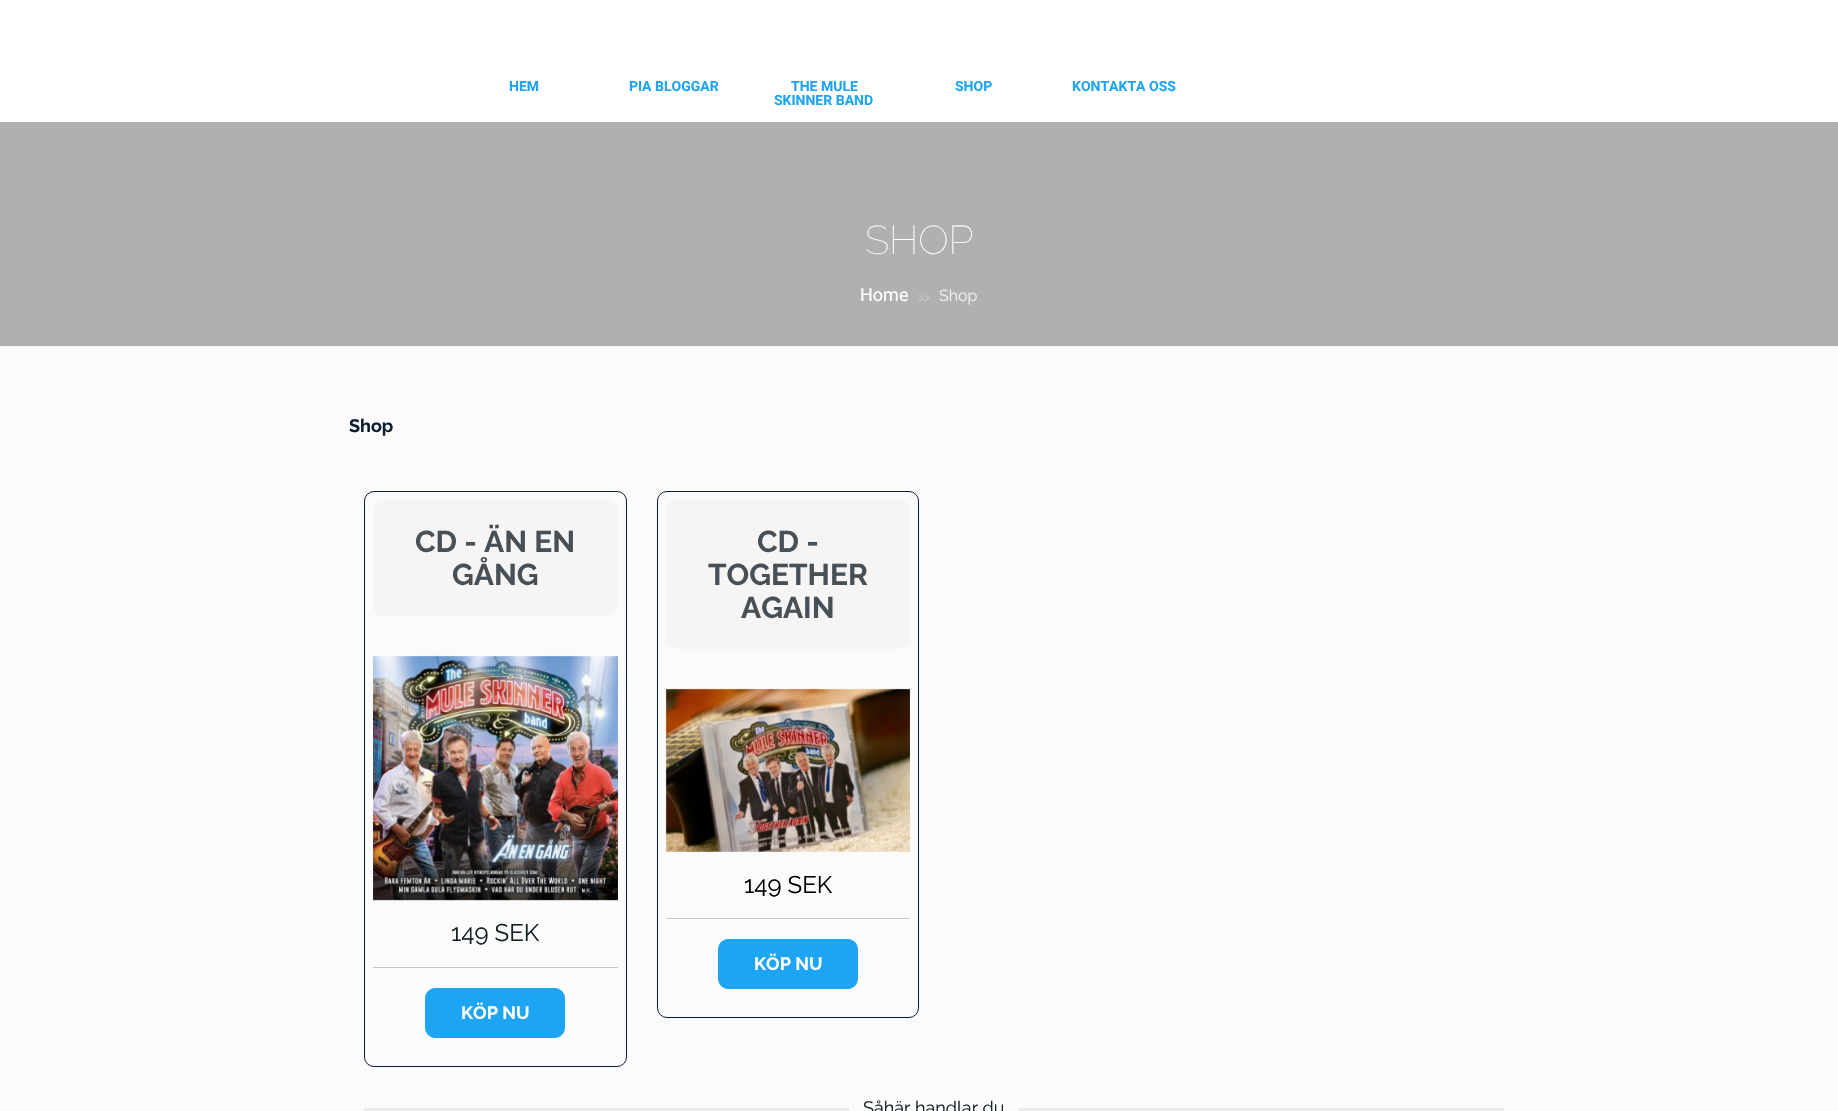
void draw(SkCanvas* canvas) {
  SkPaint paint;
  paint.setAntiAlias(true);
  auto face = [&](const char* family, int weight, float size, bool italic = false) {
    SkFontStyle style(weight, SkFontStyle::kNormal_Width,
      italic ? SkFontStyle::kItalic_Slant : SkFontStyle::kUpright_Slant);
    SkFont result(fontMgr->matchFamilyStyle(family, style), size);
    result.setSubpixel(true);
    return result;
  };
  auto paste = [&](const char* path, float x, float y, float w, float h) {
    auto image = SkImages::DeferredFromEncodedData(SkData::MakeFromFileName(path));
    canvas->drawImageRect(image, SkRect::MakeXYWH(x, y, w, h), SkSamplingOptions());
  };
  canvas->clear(0xfffbfbfb);
  paint.setColor(0xffffffff);
  canvas->drawRect(SkRect::MakeXYWH(0, 0, 1838, 122), paint);
  paint.setColor(0xffb0b0b0);
  canvas->drawRect(SkRect::MakeXYWH(0, 122, 1838, 224), paint);
  paint.setStroke(true);
  paint.setStrokeWidth(1);
  paint.setColor(0xff0d1d31);
  canvas->drawRoundRect(SkRect::MakeXYWH(364.5f, 491.5f, 262, 575), 9.5f, 9.5f, paint);
  paint.setStroke(false);
  paint.setColor(0xfff5f5f5);
  canvas->drawRoundRect(SkRect::MakeXYWH(373, 500, 245, 116), 10, 10, paint);
  paste("img/1.png", 373, 655, 245, 246);
  paint.setColor(0xffc5c7c9);
  canvas->drawRect(SkRect::MakeXYWH(373, 967, 245, 1), paint);
  paint.setColor(0xff1da4f2);
  canvas->drawRoundRect(SkRect::MakeXYWH(425.5f, 988.5f, 139, 49), 9.5f, 9.5f, paint);
  paint.setStroke(true);
  canvas->drawRoundRect(SkRect::MakeXYWH(425.5f, 988.5f, 139, 49), 9.5f, 9.5f, paint);
  paint.setColor(0xff0d1d31);
  canvas->drawRoundRect(SkRect::MakeXYWH(657.5f, 491.5f, 261, 526), 9.5f, 9.5f, paint);
  paint.setStroke(false);
  paint.setColor(0xfff5f5f5);
  canvas->drawRoundRect(SkRect::MakeXYWH(666, 500, 244, 149), 10, 10, paint);
  paste("img/2.png", 665, 688, 245, 164);
  paint.setColor(0xffc5c7c9);
  canvas->drawRect(SkRect::MakeXYWH(666, 918, 244, 1), paint);
  paint.setColor(0xff1da4f2);
  canvas->drawRoundRect(SkRect::MakeXYWH(718.5f, 939.5f, 139, 49), 9.5f, 9.5f, paint);
  paint.setStroke(true);
  canvas->drawRoundRect(SkRect::MakeXYWH(718.5f, 939.5f, 139, 49), 9.5f, 9.5f, paint);
  paint.setStroke(false);
  paint.setColor(0xffebebeb);
  canvas->drawRect(SkRect::MakeXYWH(364, 1108, 485, 3), paint);
  canvas->drawRect(SkRect::MakeXYWH(1019, 1108, 485, 3), paint);
  auto f0 = face("Roboto", 700, 14);
  paint.setColor(0xff1da4f2);
  {
    const struct { const char* s; float x, y; } items[] = {
      {"HEM", 509, 91},
      {"PIA BLOGGAR", 629, 91},
      {"THE MULE", 791, 91},
      {"SKINNER BAND", 774, 105},
      {"SHOP", 955, 91},
      {"KONTAKTA OSS", 1072, 91},
    };
    for (auto [s, x, y] : items) {
      canvas->drawString(s, x, y, f0, paint);
    }
  }
  auto f1 = face("Raleway", 100, 40);
  paint.setColor(0xffffffff);
  canvas->drawString("SHOP", 865, 254, f1, paint);
  auto f2 = face("Roboto", 400, 18);
  canvas->drawString("Home", 860, 301, f2, paint);
  auto f3 = face("Raleway", 400, 12);
  paint.setColor(0xffcccccc);
  canvas->drawString(">>", 918, 301, f3, paint);
  auto f4 = face("Raleway", 400, 16);
  paint.setColor(0xffeeeeee);
  canvas->drawString("Shop", 939, 301, f4, paint);
  auto f5 = face("Raleway", 700, 18);
  paint.setColor(0xff0d1d31);
  canvas->drawString("Shop", 349, 432, f5, paint);
  auto f6 = face("Raleway", 700, 30);
  paint.setColor(0xff475056);
  canvas->drawString("CD - ÄN EN", 415, 552, f6, paint);
  canvas->drawString("GÅNG", 452, 585, f6, paint);
  auto f7 = face("Raleway", 400, 24);
  paint.setColor(0xff141f23);
  canvas->drawString("149 SEK", 451, 941, f7, paint);
  paint.setColor(0xffffffff);
  canvas->drawString("KÖP NU", 461, 1019, f5, paint);
  paint.setColor(0xff475056);
  {
    const struct { const char* s; float x, y; } items[] = {
      {"CD -", 757, 552},
      {"TOGETHER", 708, 585},
      {"AGAIN", 741, 618},
    };
    for (auto [s, x, y] : items) {
      canvas->drawString(s, x, y, f6, paint);
    }
  }
  paint.setColor(0xff000000);
  canvas->drawString("149 SEK", 744, 893, f7, paint);
  paint.setColor(0xffffffff);
  canvas->drawString("KÖP NU", 754, 970, f5, paint);
  auto f8 = face("Raleway", 400, 18);
  paint.setColor(0xff141f23);
  canvas->drawString("Såhär handlar du", 863, 1114, f8, paint);
}
